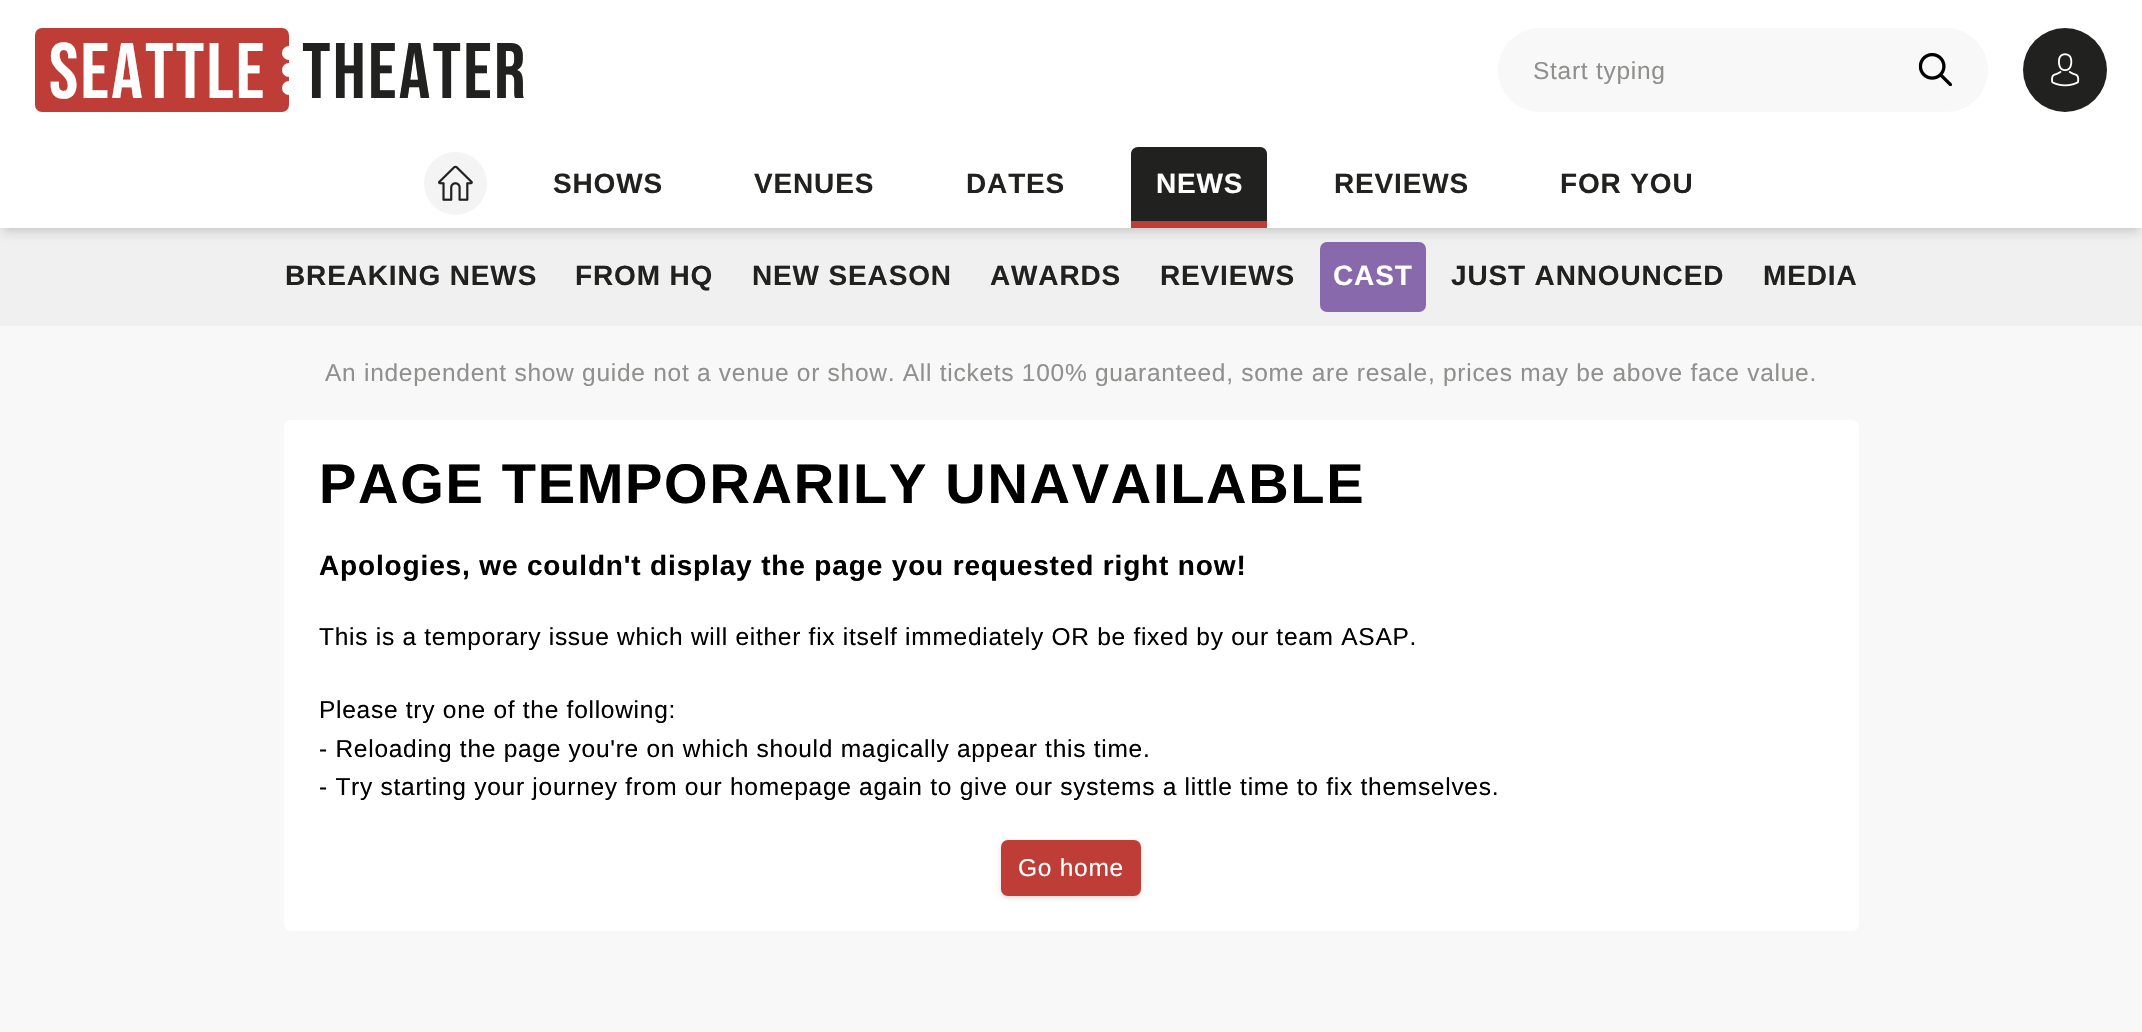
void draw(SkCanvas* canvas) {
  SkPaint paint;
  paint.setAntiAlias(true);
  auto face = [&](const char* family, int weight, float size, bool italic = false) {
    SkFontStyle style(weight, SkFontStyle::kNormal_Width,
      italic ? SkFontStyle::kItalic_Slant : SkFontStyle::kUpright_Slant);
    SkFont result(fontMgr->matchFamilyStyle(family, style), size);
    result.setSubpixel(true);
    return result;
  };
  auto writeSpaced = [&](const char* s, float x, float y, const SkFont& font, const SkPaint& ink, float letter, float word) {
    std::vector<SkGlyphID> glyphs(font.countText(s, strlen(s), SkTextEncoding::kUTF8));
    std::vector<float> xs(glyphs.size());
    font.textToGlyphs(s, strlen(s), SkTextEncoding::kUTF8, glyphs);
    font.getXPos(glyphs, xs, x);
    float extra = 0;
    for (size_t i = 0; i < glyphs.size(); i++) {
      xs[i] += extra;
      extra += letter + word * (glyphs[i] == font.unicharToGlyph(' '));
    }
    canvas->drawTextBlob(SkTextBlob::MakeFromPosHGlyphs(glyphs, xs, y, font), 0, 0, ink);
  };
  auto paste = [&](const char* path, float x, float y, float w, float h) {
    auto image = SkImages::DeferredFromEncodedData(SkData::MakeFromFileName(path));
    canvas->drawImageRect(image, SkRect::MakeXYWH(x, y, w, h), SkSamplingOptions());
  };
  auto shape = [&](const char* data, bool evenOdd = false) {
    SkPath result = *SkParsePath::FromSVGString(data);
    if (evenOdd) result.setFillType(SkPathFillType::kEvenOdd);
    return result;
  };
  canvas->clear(0xfff8f8f8);
  paint.setColor(0xfff0f0f0);
  canvas->drawRect(SkRect::MakeXYWH(0, 228, 2142, 98), paint);
  paint.setColor(0x1a000000);
  paint.setMaskFilter(SkMaskFilter::MakeBlur(kNormal_SkBlurStyle, 3.5f));
  canvas->drawRect(SkRect::MakeXYWH(4, 119, 2135, 109), paint);
  paint.setMaskFilter(nullptr);
  paint.setColor(0xff8869ac);
  canvas->drawRoundRect(SkRect::MakeXYWH(1320, 242, 106, 70), 7, 7, paint);
  paint.setColor(0x1a000000);
  paint.setMaskFilter(SkMaskFilter::MakeBlur(kNormal_SkBlurStyle, 5));
  canvas->drawRect(SkRect::MakeXYWH(2, 121, 2138, 112), paint);
  paint.setMaskFilter(nullptr);
  paint.setColor(0xffffffff);
  canvas->drawRect(SkRect::MakeXYWH(0, 0, 2142, 228), paint);
  paint.setColor(0xffbf3d37);
  canvas->drawRoundRect(SkRect::MakeXYWH(35, 28, 254, 84), 7, 7, paint);
  paint.setColor(0xffffffff);
  canvas->drawCircle(289, 53, 7, paint);
  canvas->drawCircle(289, 70, 7, paint);
  canvas->drawCircle(289, 88, 7, paint);
  paint.setColor(0xfff8f8f8);
  canvas->drawRoundRect(SkRect::MakeXYWH(1498, 28, 490, 84), 42, 42, paint);
  paste("img/1.png", 1918, 53, 34, 34);
  paint.setColor(0xff212120);
  canvas->drawCircle(2065, 70, 42, paint);
  paste("img/2.png", 2051, 53, 29, 34);
  paint.setColor(0xfff4f4f4);
  canvas->drawCircle(455.5f, 183.5f, 31.5f, paint);
  paste("img/3.png", 438, 165, 35, 36);
  paint.setColor(0xff212120);
  canvas->drawPath(shape("M1138 147H1260C1264 147 1267 150 1267 154V221H1131V154C1131 150 1134 147 1138 147Z"), paint);
  paint.setColor(0xffbf3d37);
  canvas->drawRect(SkRect::MakeXYWH(1131, 221, 136, 7), paint);
  paint.setColor(0xffffffff);
  canvas->drawRoundRect(SkRect::MakeXYWH(284, 420, 1575, 511), 7, 7, paint);
  paint.setColor(0x1a000000);
  paint.setMaskFilter(SkMaskFilter::MakeBlur(kNormal_SkBlurStyle, 2));
  canvas->drawRoundRect(SkRect::MakeXYWH(1003, 844, 136, 52), 5, 5, paint);
  paint.setMaskFilter(nullptr);
  paint.setMaskFilter(SkMaskFilter::MakeBlur(kNormal_SkBlurStyle, 2.5f));
  canvas->drawRoundRect(SkRect::MakeXYWH(1001, 842, 140, 56), 7, 7, paint);
  paint.setMaskFilter(nullptr);
  paint.setColor(0xffbf3d37);
  canvas->drawRoundRect(SkRect::MakeXYWH(1001, 840, 140, 56), 7, 7, paint);
  auto f0 = face("Bebas Neue", 400, 78.5f);
  paint.setColor(0xffffffff);
  writeSpaced("Seattle", 49, 98, f0, paint, 2.25f, 0);
  paint.setColor(0xff212120);
  writeSpaced("Theater", 302, 98, f0, paint, 2.25f, 0);
  auto f1 = face("Liberation Sans", 400, 24.5f);
  paint.setColor(0xff90908f);
  writeSpaced("Start typing", 1533, 79, f1, paint, 0.73f, 0);
  auto f2 = face("Liberation Sans", 700, 28);
  paint.setColor(0xff212120);
  {
    const struct { const char* s; float x, y; } items[] = {
      {"SHOWS", 553, 193},
      {"VENUES", 754, 193},
      {"DATES", 966, 193},
    };
    for (auto [s, x, y] : items) {
      writeSpaced(s, x, y, f2, paint, 0.85f, 0);
    }
  }
  paint.setColor(0xffffffff);
  writeSpaced("NEWS", 1156, 193, f2, paint, 0.85f, 0);
  paint.setColor(0xff212120);
  {
    const struct { const char* s; float x, y; } items[] = {
      {"REVIEWS", 1334, 193},
      {"FOR YOU", 1560, 193},
      {"BREAKING NEWS", 285, 285},
      {"FROM HQ", 575, 285},
      {"NEW SEASON", 752, 285},
      {"AWARDS", 990, 285},
      {"REVIEWS", 1160, 285},
    };
    for (auto [s, x, y] : items) {
      writeSpaced(s, x, y, f2, paint, 0.85f, 0);
    }
  }
  paint.setColor(0xffffffff);
  writeSpaced("CAST", 1333, 285, f2, paint, 0.85f, 0);
  paint.setColor(0xff212120);
  writeSpaced("JUST ANNOUNCED", 1451, 285, f2, paint, 0.85f, 0);
  writeSpaced("MEDIA", 1763, 285, f2, paint, 0.85f, 0);
  paint.setColor(0xff90908f);
  writeSpaced("An independent show guide not a venue or show. All tickets 100% guaranteed, some are resale, prices may be above face value.", 325, 381, f1, paint, 0.73f, 0);
  auto f3 = face("Liberation Sans", 700, 56);
  paint.setColor(0xff000000);
  writeSpaced("PAGE TEMPORARILY UNAVAILABLE", 319, 503, f3, paint, 1.7f, 0);
  writeSpaced("Apologies, we couldn't display the page you requested right now!", 319, 575, f2, paint, 0.85f, 0);
  {
    const struct { const char* s; float x, y; } items[] = {
      {"This is a temporary issue which will either fix itself immediately OR be fixed by our team ASAP.", 319, 645},
      {"Please try one of the following:", 319, 718},
      {"- Reloading the page you're on which should magically appear this time.", 319, 757},
      {"- Try starting your journey from our homepage again to give our systems a little time to fix themselves.", 319, 795},
    };
    for (auto [s, x, y] : items) {
      writeSpaced(s, x, y, f1, paint, 0.73f, 0);
    }
  }
  paint.setColor(0xffffffff);
  writeSpaced("Go home", 1018, 876, f1, paint, 0.73f, 0);
}
